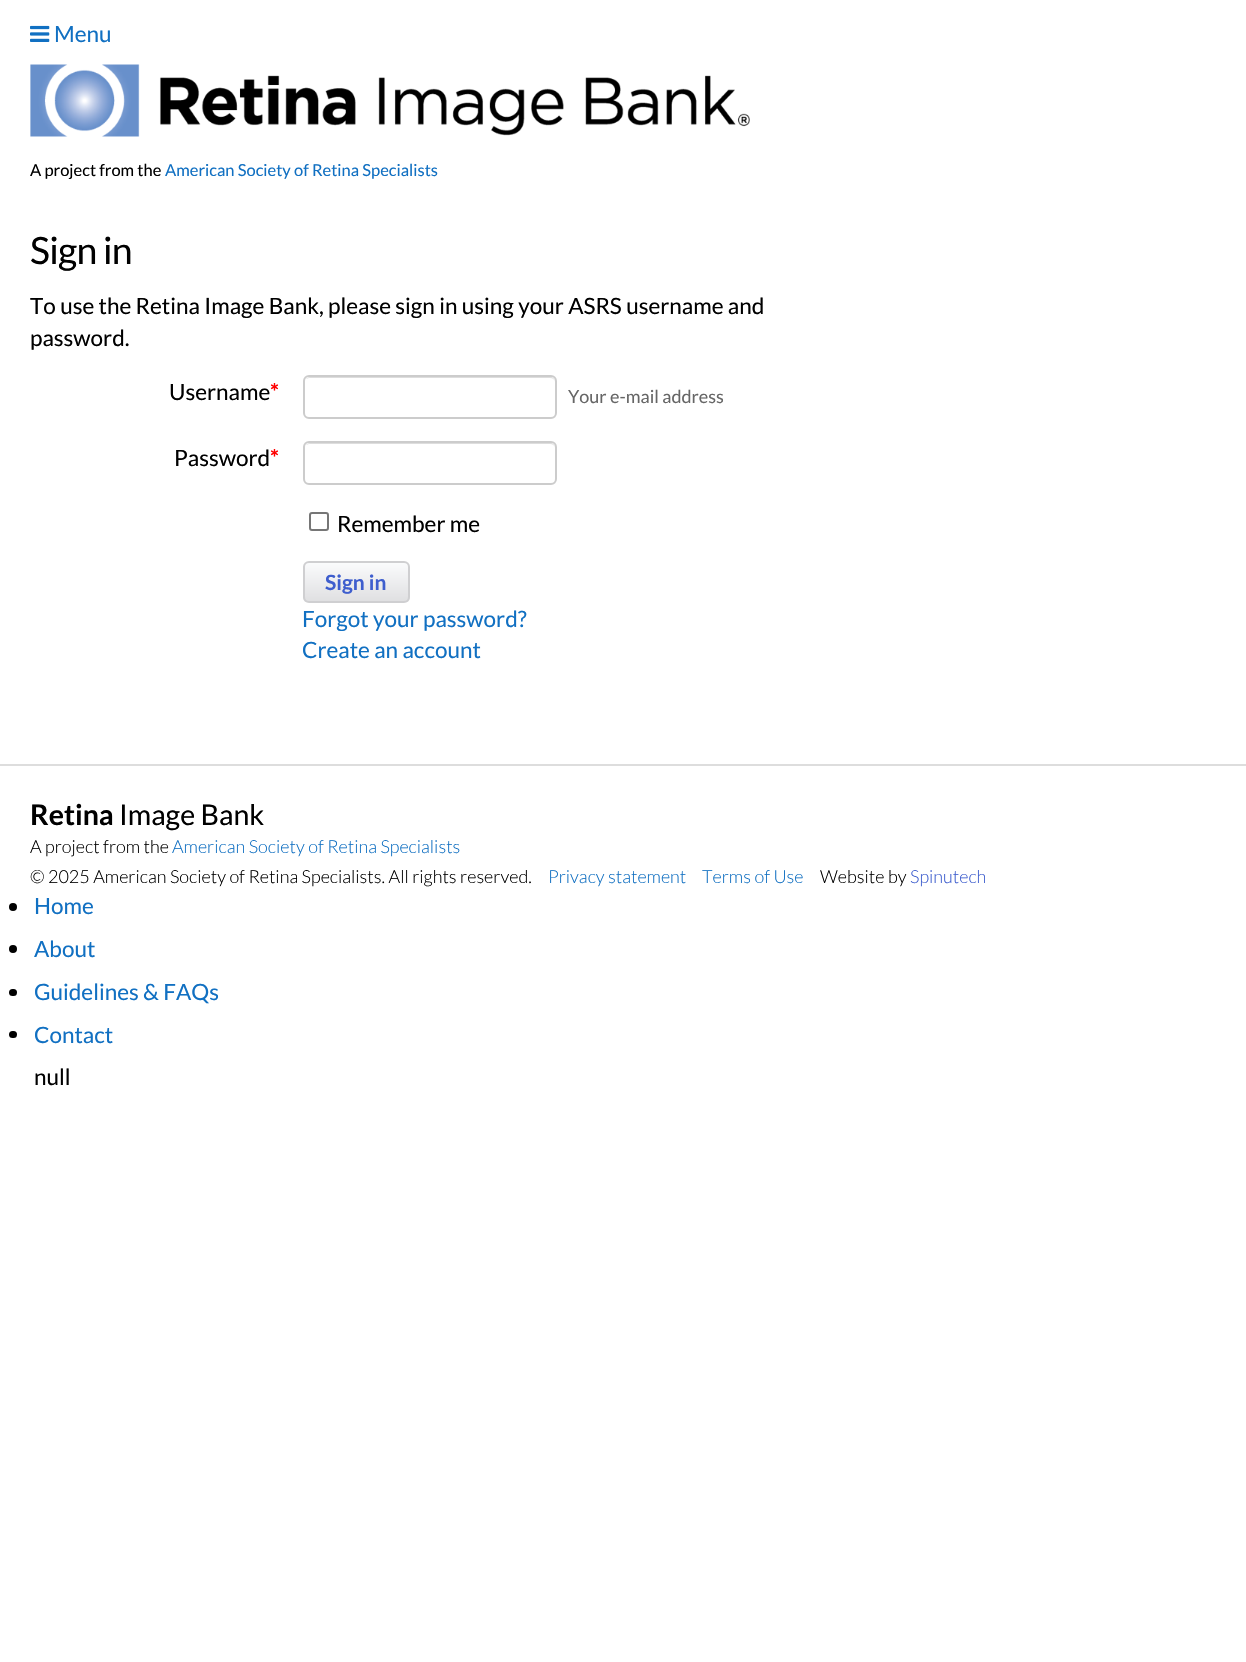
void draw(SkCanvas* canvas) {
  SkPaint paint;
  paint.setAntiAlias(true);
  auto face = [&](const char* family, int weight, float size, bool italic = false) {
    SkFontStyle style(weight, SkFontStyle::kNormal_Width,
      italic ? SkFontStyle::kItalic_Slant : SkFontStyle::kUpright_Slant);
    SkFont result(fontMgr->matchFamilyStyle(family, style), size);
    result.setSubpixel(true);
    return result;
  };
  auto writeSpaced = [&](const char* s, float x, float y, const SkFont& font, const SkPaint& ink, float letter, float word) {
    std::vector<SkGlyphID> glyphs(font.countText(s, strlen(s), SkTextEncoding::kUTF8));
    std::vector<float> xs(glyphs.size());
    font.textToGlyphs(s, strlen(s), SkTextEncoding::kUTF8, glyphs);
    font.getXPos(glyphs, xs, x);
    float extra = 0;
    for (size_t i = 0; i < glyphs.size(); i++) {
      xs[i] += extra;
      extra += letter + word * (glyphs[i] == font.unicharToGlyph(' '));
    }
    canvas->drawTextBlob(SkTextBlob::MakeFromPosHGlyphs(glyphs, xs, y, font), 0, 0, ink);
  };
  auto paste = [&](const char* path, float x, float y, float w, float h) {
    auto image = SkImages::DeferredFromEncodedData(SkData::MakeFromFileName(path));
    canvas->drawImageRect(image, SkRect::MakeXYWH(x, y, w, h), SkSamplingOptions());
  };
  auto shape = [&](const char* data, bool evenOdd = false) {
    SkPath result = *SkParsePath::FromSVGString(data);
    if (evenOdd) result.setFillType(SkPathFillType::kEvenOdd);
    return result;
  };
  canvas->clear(0xffffffff);
  paste("img/1.png", 30, 25, 20, 17);
  paste("img/2.png", 30, 64, 720, 73);
  paint.setColor(0xffdddddd);
  canvas->drawPath(shape("M309 378H550C553 378 555 380 555 382C555 379 553 377 550 377H310C308 377 307 378 306 379Z"), paint);
  paint.setStroke(true);
  paint.setStrokeWidth(2);
  paint.setColor(0xffcccccc);
  canvas->drawRoundRect(SkRect::MakeXYWH(304, 376, 252, 42), 5, 5, paint);
  paint.setStroke(false);
  paint.setColor(0xffdddddd);
  canvas->drawPath(shape("M309 444H550C553 444 555 446 555 448C555 445 553 443 550 443H310C308 443 307 444 306 445Z"), paint);
  paint.setStroke(true);
  paint.setColor(0xffcccccc);
  canvas->drawRoundRect(SkRect::MakeXYWH(304, 442, 252, 42), 5, 5, paint);
  paint.setColor(0xff767676);
  canvas->drawRoundRect(SkRect::MakeXYWH(310, 513, 18, 17), 2, 2, paint);
  canvas->save();
  canvas->clipPath(shape("M309 561H404C407.5 561 410 563.5 410 567V597C410 600.5 407.5 603 404 603H309C305.5 603 303 600.5 303 597V567C303 563.5 305.5 561 309 561Z"), true);
  paint.setStroke(false);
  {
    const SkColor colors[] = {0xfffafbfc, 0xffdfdfe1};
    const float stops[] = {0, 1};
    const SkPoint ends[] = {{356, 563}, {356, 602}};
    paint.setShader(SkGradientShader::MakeLinear(ends, colors, stops, 2, SkTileMode::kClamp));
    paint.setAlpha(255);
  }
  canvas->drawRect(SkRect::MakeXYWH(303, 563, 107, 39), paint);
  canvas->restore();
  paint.setStroke(true);
  paint.setShader(nullptr);
  paint.setColor(0xffcfcfd1);
  canvas->drawRoundRect(SkRect::MakeXYWH(304, 562, 105, 40), 5, 5, paint);
  paint.setStroke(false);
  paint.setColor(0xffdddddd);
  canvas->drawRect(SkRect::MakeXYWH(0, 764, 1246, 2), paint);
  paint.setColor(0xff000000);
  canvas->drawCircle(13, 907, 4, paint);
  canvas->drawCircle(13, 949, 4, paint);
  canvas->drawRoundRect(SkRect::MakeXYWH(9, 989, 8, 7), 3.5f, 3.5f, paint);
  canvas->drawRoundRect(SkRect::MakeXYWH(9, 1031, 8, 7), 3.5f, 3.5f, paint);
  auto f0 = face("Lato", 400, 22.5f);
  paint.setColor(0xff1170c2);
  canvas->drawString("Menu", 54, 42, f0, paint);
  auto f1 = face("Lato", 400, 16.5f);
  paint.setColor(0xff000000);
  canvas->drawString("A project from the", 30, 176, f1, paint);
  paint.setColor(0xff1170c2);
  canvas->drawString("American Society of Retina Specialists", 165, 176, f1, paint);
  auto f2 = face("Lato", 400, 37.5f);
  paint.setColor(0xff000000);
  writeSpaced("Sign in", 30, 264, f2, paint, -0.75f, 0);
  {
    const struct { const char* s; float x, y; } items[] = {
      {"To use the Retina Image Bank, please sign in using your ASRS username and", 30, 314},
      {"password.", 30, 346},
      {"Username", 169, 400},
    };
    for (auto [s, x, y] : items) {
      canvas->drawString(s, x, y, f0, paint);
    }
  }
  auto f3 = face("Lato", 700, 22.5f);
  paint.setColor(0xffff0000);
  canvas->drawString("*", 270, 400, f3, paint);
  auto f4 = face("Lato", 400, 18);
  paint.setColor(0xff666666);
  canvas->drawString("Your e-mail address", 568, 403, f4, paint);
  paint.setColor(0xff000000);
  canvas->drawString("Password", 174, 466, f0, paint);
  paint.setColor(0xffff0000);
  canvas->drawString("*", 270, 466, f3, paint);
  paint.setColor(0xff000000);
  canvas->drawString("Remember me", 337, 532, f0, paint);
  auto f5 = face("Lato", 700, 21);
  paint.setColor(0xff3e5ece);
  canvas->drawString("Sign in", 325, 590, f5, paint);
  paint.setColor(0xff1170c2);
  canvas->drawString("Forgot your password?", 302, 627, f0, paint);
  canvas->drawString("Create an account", 302, 658, f0, paint);
  auto f6 = face("Lato", 700, 28.5f);
  paint.setColor(0xff000000);
  canvas->drawString("Retina", 30, 825, f6, paint);
  auto f7 = face("Lato", 400, 28.5f);
  canvas->drawString("Image Bank", 119, 825, f7, paint);
  auto f8 = face("Lato", 300, 18);
  canvas->drawString("A project from the", 30, 853, f8, paint);
  paint.setColor(0xff1170c2);
  canvas->drawString("American Society of Retina Specialists", 172, 853, f8, paint);
  paint.setColor(0xff000000);
  canvas->drawString("© 2025 American Society of Retina Specialists. All rights reserved.", 30, 883, f8, paint);
  paint.setColor(0xff1170c2);
  canvas->drawString("Privacy statement", 548, 883, f8, paint);
  canvas->drawString("Terms of Use", 702, 883, f8, paint);
  paint.setColor(0xff000000);
  canvas->drawString("Website by", 820, 883, f8, paint);
  paint.setColor(0xff3e5ece);
  canvas->drawString("Spinutech", 910, 883, f8, paint);
  paint.setColor(0xff1170c2);
  {
    const struct { const char* s; float x, y; } items[] = {
      {"Home", 34, 914},
      {"About", 34, 957},
      {"Guidelines & FAQs", 34, 1000},
      {"Contact", 34, 1043},
    };
    for (auto [s, x, y] : items) {
      canvas->drawString(s, x, y, f0, paint);
    }
  }
  paint.setColor(0xff000000);
  canvas->drawString("null", 34, 1085, f0, paint);
}
